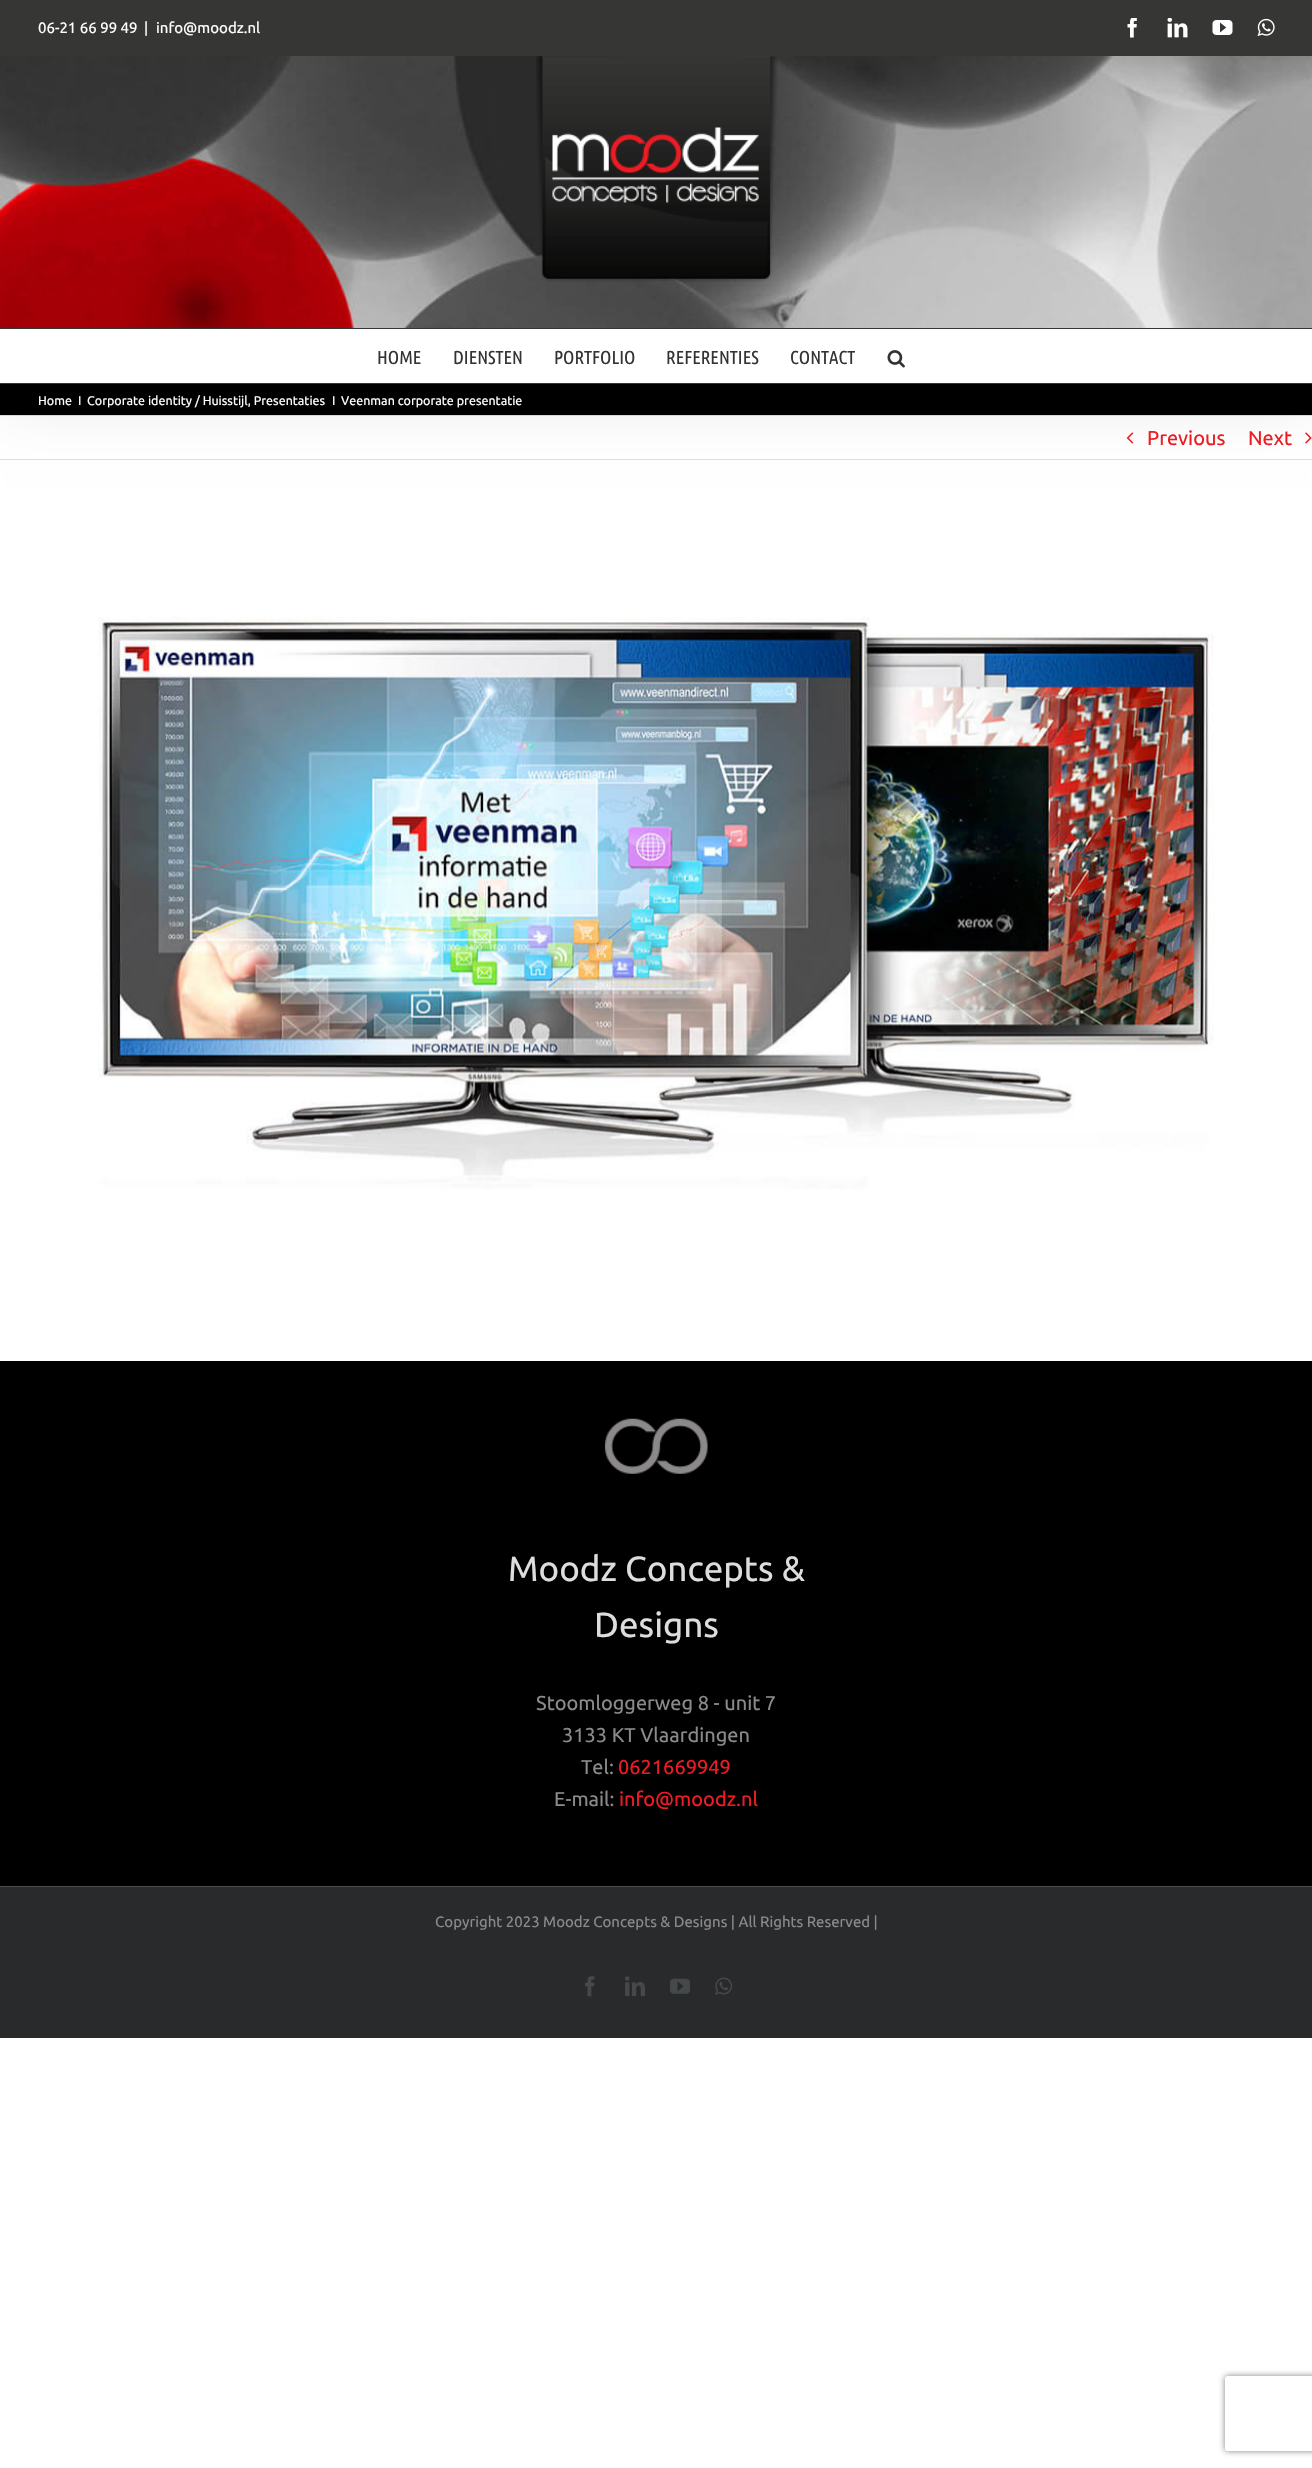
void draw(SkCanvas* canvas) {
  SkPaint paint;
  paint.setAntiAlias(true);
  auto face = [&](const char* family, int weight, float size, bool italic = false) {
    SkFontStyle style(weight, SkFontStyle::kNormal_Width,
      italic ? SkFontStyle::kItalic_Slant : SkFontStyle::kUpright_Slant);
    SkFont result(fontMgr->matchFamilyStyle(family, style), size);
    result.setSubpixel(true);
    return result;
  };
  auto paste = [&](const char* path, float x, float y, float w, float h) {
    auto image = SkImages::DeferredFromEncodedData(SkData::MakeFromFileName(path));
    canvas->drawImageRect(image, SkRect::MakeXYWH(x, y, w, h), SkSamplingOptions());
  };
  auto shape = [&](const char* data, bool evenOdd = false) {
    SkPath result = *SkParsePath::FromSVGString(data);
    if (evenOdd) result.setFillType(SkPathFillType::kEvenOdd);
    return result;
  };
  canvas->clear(0xffffffff);
  {
    const struct { float x, y, w, h; SkColor color; } items[] = {
      {0, 384, 1312, 31, 0xff000000},
      {0, 415, 1312, 1, 0xffe0dede},
      {0, 459, 1312, 1, 0xffe0dede},
    };
    for (auto [x, y, w, h, color] : items) {
      paint.setColor(color);
      canvas->drawRect(SkRect::MakeXYWH(x, y, w, h), paint);
    }
  }
  paste("img/8.png", 1126, 432, 8, 12);
  paste("img/9.png", 1305, 432, 7, 12);
  paint.setColor(0x24000000);
  paint.setMaskFilter(SkMaskFilter::MakeBlur(kNormal_SkBlurStyle, 31));
  canvas->drawRect(SkRect::MakeXYWH(3, 15, 1307, 379), paint);
  paint.setMaskFilter(nullptr);
  paint.setColor(0xff363635);
  canvas->drawRect(SkRect::MakeXYWH(0, 0, 1312, 56), paint);
  paste("img/1.png", 1127, 18, 10, 20);
  paste("img/2.png", 1167, 18, 21, 20);
  paste("img/3.png", 1212, 20, 21, 15);
  paste("img/4.png", 1257, 18, 18, 19);
  paste("img/5.png", 0, 56, 1312, 272);
  canvas->drawRect(SkRect::MakeXYWH(0, 328, 1312, 1), paint);
  paste("img/6.png", 536, 56, 242, 226);
  paint.setColor(0xffffffff);
  canvas->drawRect(SkRect::MakeXYWH(0, 329, 1312, 54), paint);
  paint.setColor(0xff363635);
  canvas->drawRect(SkRect::MakeXYWH(0, 383, 1312, 1), paint);
  paste("img/7.png", 887, 350, 18, 18);
  paste("img/10.png", 98, 617, 1116, 572);
  paint.setColor(0xff000000);
  canvas->drawRect(SkRect::MakeXYWH(0, 1361, 1312, 525), paint);
  paste("img/11.png", 604, 1418, 104, 56);
  paint.setColor(0xff282a2b);
  canvas->drawRect(SkRect::MakeXYWH(0, 1887, 1312, 151), paint);
  paint.setColor(0xff4b4c4d);
  canvas->drawRect(SkRect::MakeXYWH(0, 1886, 1312, 1), paint);
  paste("img/12.png", 585, 1976, 10, 21);
  paste("img/13.png", 625, 1976, 20, 21);
  paste("img/14.png", 670, 1978, 20, 16);
  paste("img/15.png", 715, 1977, 17, 18);
  canvas->save();
  canvas->clipPath(shape("M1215 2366H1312V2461H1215ZM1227.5 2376H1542.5C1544 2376 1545 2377 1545 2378.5V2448.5C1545 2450 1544 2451 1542.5 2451H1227.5C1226 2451 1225 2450 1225 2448.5V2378.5C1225 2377 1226 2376 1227.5 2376Z", true), true);
  paint.setColor(0xff808080);
  paint.setMaskFilter(SkMaskFilter::MakeBlur(kNormal_SkBlurStyle, 3));
  canvas->drawRoundRect(SkRect::MakeXYWH(1225, 2376, 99, 75), 2.5f, 2.5f, paint);
  paint.setMaskFilter(nullptr);
  canvas->restore();
  auto f0 = face("Ubuntu", 400, 15);
  paint.setColor(0xffffffff);
  {
    const struct { const char* s; float x, y; } items[] = {
      {"06-21 66 99 49", 38, 33},
      {"|", 144, 33},
      {"info@moodz.nl", 156, 33},
    };
    for (auto [s, x, y] : items) {
      canvas->drawString(s, x, y, f0, paint);
    }
  }
  auto f1 = face("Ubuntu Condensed", 400, 18.75f);
  paint.setColor(0xff333333);
  {
    const struct { const char* s; float x, y; } items[] = {
      {"HOME", 377, 364},
      {"DIENSTEN", 453, 364},
      {"PORTFOLIO", 554, 364},
      {"REFERENTIES", 666, 364},
      {"CONTACT", 790, 364},
    };
    for (auto [s, x, y] : items) {
      canvas->drawString(s, x, y, f1, paint);
    }
  }
  auto f2 = face("Ubuntu", 400, 12.5f);
  paint.setColor(0xffffffff);
  {
    const struct { const char* s; float x, y; } items[] = {
      {"Home", 38, 405},
      {"I", 78, 405},
      {"Corporate identity / Huisstijl, Presentaties", 87, 405},
      {"I", 332, 405},
      {"Veenman corporate presentatie", 341, 405},
    };
    for (auto [s, x, y] : items) {
      canvas->drawString(s, x, y, f2, paint);
    }
  }
  auto f3 = face("Ubuntu", 400, 20);
  paint.setColor(0xffed1c24);
  canvas->drawString("Previous", 1147, 445, f3, paint);
  canvas->drawString("Next", 1248, 445, f3, paint);
  auto f4 = face("Ubuntu", 400, 35);
  paint.setColor(0xffdddddd);
  canvas->drawString("Moodz Concepts &", 508, 1581, f4, paint);
  canvas->drawString("Designs", 594, 1637, f4, paint);
  paint.setColor(0xff8c8989);
  {
    const struct { const char* s; float x, y; } items[] = {
      {"Stoomloggerweg 8 - unit 7", 536, 1710},
      {"3133 KT Vlaardingen", 562, 1742},
      {"Tel:", 581, 1774},
    };
    for (auto [s, x, y] : items) {
      canvas->drawString(s, x, y, f3, paint);
    }
  }
  paint.setColor(0xffed1c24);
  canvas->drawString("0621669949", 618, 1774, f3, paint);
  paint.setColor(0xff8c8989);
  canvas->drawString("E-mail:", 554, 1806, f3, paint);
  paint.setColor(0xffed1c24);
  canvas->drawString("info@moodz.nl", 619, 1806, f3, paint);
  paint.setColor(0xff8c8989);
  canvas->drawString("Copyright 2023 Moodz Concepts & Designs | All Rights Reserved |", 435, 1927, f0, paint);
}
